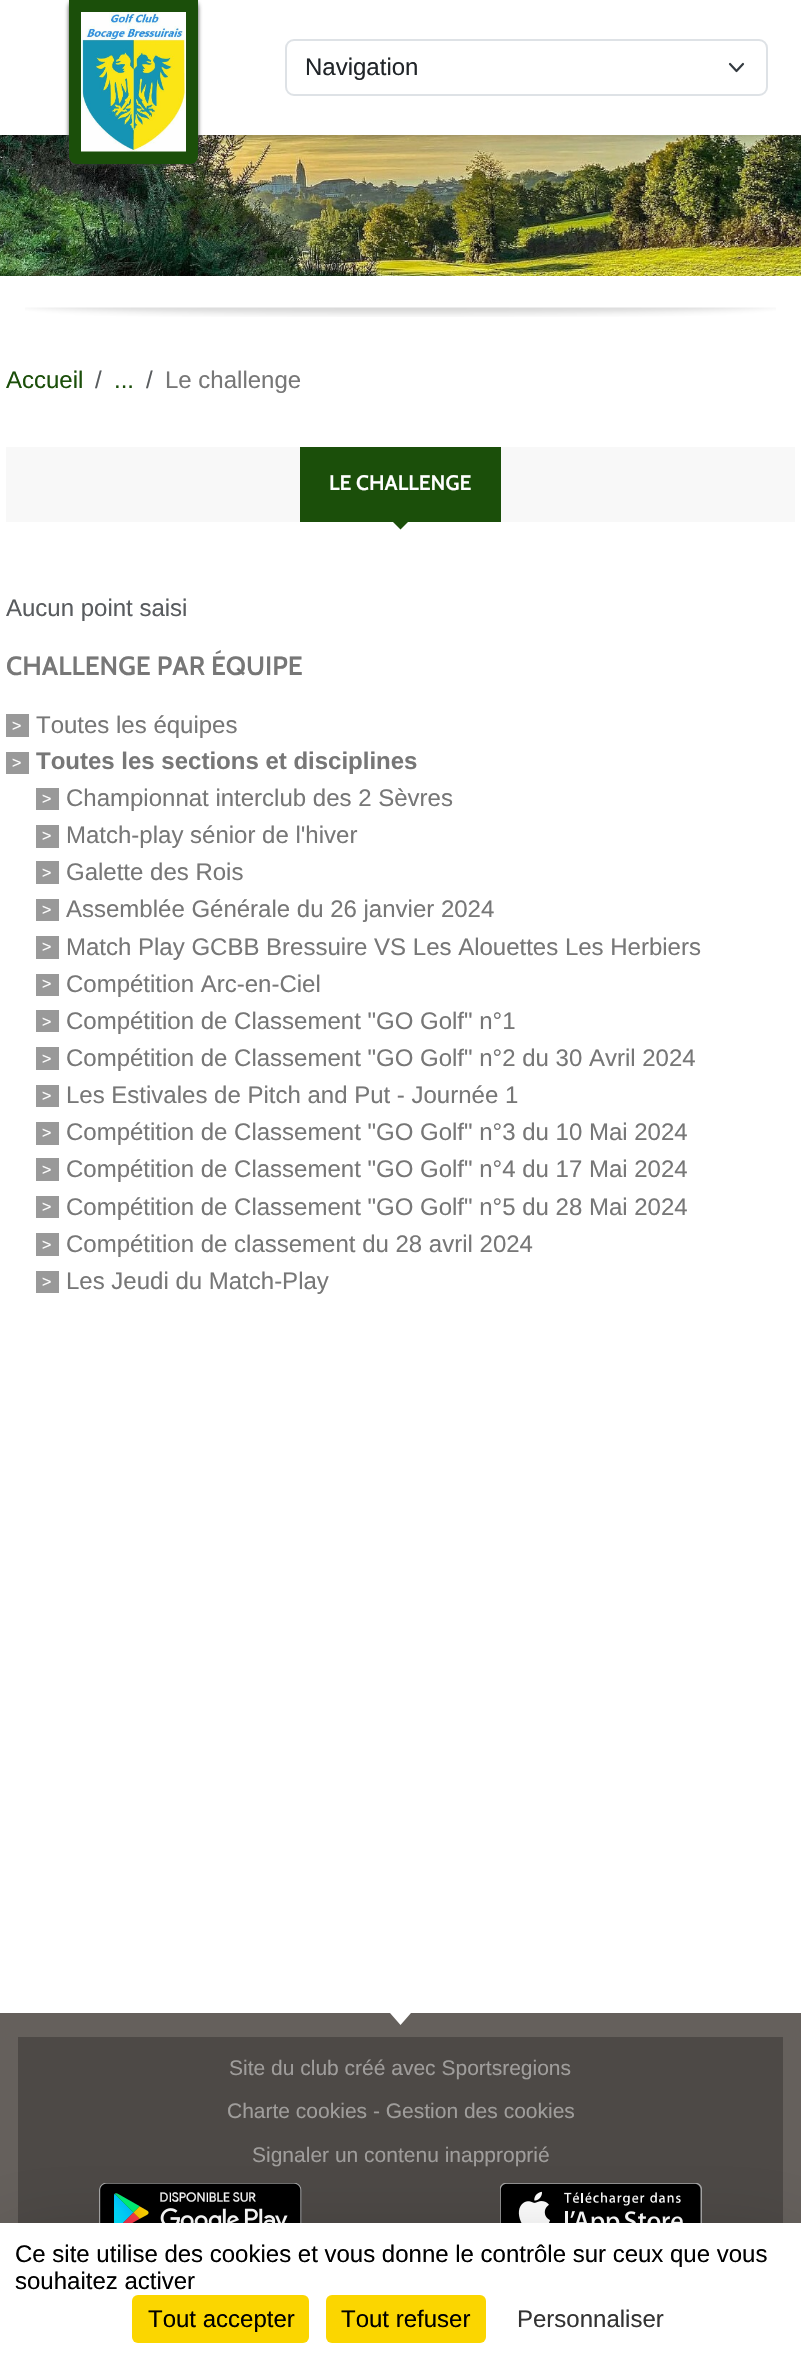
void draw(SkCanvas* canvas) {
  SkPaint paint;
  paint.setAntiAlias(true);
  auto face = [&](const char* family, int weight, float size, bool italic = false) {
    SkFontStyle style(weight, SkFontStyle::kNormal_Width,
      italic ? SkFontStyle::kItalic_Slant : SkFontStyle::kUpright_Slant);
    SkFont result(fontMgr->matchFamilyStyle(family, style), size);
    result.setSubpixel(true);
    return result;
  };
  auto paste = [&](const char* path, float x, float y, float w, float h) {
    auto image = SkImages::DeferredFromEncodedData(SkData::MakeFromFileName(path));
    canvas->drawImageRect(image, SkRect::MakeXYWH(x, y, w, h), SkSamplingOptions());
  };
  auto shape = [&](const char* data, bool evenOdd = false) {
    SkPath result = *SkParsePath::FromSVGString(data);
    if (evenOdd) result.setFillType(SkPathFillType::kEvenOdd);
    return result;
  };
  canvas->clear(0xffffffff);
  paste("img/3.png", 0, 135, 801, 141);
  paste("img/2.png", 38, 135, 747, 10);
  paint.setColor(0xff444444);
  paint.setMaskFilter(SkMaskFilter::MakeBlur(kNormal_SkBlurStyle, 2));
  canvas->drawRoundRect(SkRect::MakeXYWH(69, 0, 129, 164), 8, 8, paint);
  paint.setMaskFilter(nullptr);
  paint.setColor(0xff1b4f0a);
  canvas->drawPath(shape("M69 0H198V156C198 160.5 194.5 164 190 164H77C72.5 164 69 160.5 69 156Z"), paint);
  paste("img/1.png", 81, 12, 105, 140);
  paint.setStroke(true);
  paint.setStrokeWidth(2.2f);
  paint.setStrokeCap(SkPaint::kRound_Cap);
  paint.setStrokeJoin(SkPaint::kRound_Join);
  paint.setColor(0xff343a40);
  canvas->drawPath(shape("M730 64L736.5 71L743 64"), paint);
  paint.setStrokeWidth(2);
  paint.setStrokeCap(SkPaint::kButt_Cap);
  paint.setStrokeJoin(SkPaint::kMiter_Join);
  paint.setColor(0xffdee2e6);
  canvas->drawRoundRect(SkRect::MakeXYWH(286, 40, 481, 55), 8, 8, paint);
  paste("img/4.png", 25, 307, 751, 10);
  paint.setStroke(false);
  paint.setColor(0xfff8f8f8);
  canvas->drawRect(SkRect::MakeXYWH(6, 447, 789, 75), paint);
  paint.setColor(0xff1b4f0a);
  canvas->drawRect(SkRect::MakeXYWH(300, 447, 201, 75), paint);
  canvas->drawPath(shape("M393 522H408L400.5 529.5Z"), paint);
  {
    const struct { float x, y, w, h; SkColor color; } items[] = {
      {6, 714, 23, 23, 0xff999999},
      {6, 752, 23, 22, 0xff999999},
      {36, 788, 23, 22, 0xff999999},
      {36, 825, 23, 23, 0xff999999},
      {36, 861, 23, 23, 0xff999999},
      {36, 899, 23, 22, 0xff999999},
      {36, 936, 23, 23, 0xff999999},
      {36, 974, 23, 22, 0xff999999},
      {36, 1010, 23, 22, 0xff999999},
      {36, 1047, 23, 23, 0xff999999},
      {36, 1085, 23, 22, 0xff999999},
      {36, 1122, 23, 23, 0xff999999},
      {36, 1158, 23, 23, 0xff999999},
      {36, 1196, 23, 22, 0xff999999},
      {36, 1233, 23, 23, 0xff999999},
      {36, 1271, 23, 22, 0xff999999},
      {0, 2013, 801, 210, 0xff65605c},
    };
    for (auto [x, y, w, h, color] : items) {
      paint.setColor(color);
      canvas->drawRect(SkRect::MakeXYWH(x, y, w, h), paint);
    }
  }
  paint.setColor(0xffffffff);
  canvas->drawPath(shape("M390 2013H411L400.5 2025Z"), paint);
  paint.setColor(0xff4d4946);
  canvas->drawRect(SkRect::MakeXYWH(18, 2037, 765, 186), paint);
  paste("img/5.png", 99, 2183, 203, 40);
  paste("img/6.png", 500, 2183, 202, 40);
  paint.setColor(0x40000000);
  paint.setMaskFilter(SkMaskFilter::MakeBlur(kNormal_SkBlurStyle, 45));
  canvas->drawRect(SkRect::MakeXYWH(0, 2253, 801, 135), paint);
  paint.setMaskFilter(nullptr);
  paint.setColor(0xffffffff);
  canvas->drawRect(SkRect::MakeXYWH(0, 2223, 801, 134), paint);
  paint.setColor(0xfffbd600);
  canvas->drawRoundRect(SkRect::MakeXYWH(132, 2295, 177, 48), 6, 6, paint);
  canvas->drawRoundRect(SkRect::MakeXYWH(326, 2295, 160, 48), 6, 6, paint);
  auto f0 = face("Liberation Sans", 400, 24);
  paint.setColor(0xff212529);
  canvas->drawString("Navigation", 305, 75, f0, paint);
  paint.setColor(0xff1b4f0a);
  canvas->drawString("Accueil", 6, 388, f0, paint);
  paint.setColor(0xff595c5f);
  canvas->drawString("/", 95, 388, f0, paint);
  paint.setColor(0xff1b4f0a);
  canvas->drawString("...", 114, 388, f0, paint);
  paint.setColor(0xff595c5f);
  canvas->drawString("/", 146, 388, f0, paint);
  paint.setColor(0xff777777);
  canvas->drawString("Le challenge", 165, 388, f0, paint);
  auto f1 = face("Cabin", 600, 21);
  paint.setColor(0xffffffff);
  canvas->drawString("LE CHALLENGE", 329, 490, f1, paint);
  paint.setColor(0xff595c5f);
  canvas->drawString("Aucun point saisi", 6, 616, f0, paint);
  auto f2 = face("Cabin", 600, 26.4f);
  paint.setColor(0xff777777);
  canvas->drawString("CHALLENGE PAR ÉQUIPE", 6, 675, f2, paint);
  auto f3 = face("Liberation Sans", 400, 16);
  paint.setColor(0xffffffff);
  canvas->drawString(">", 12, 731, f3, paint);
  paint.setColor(0xff777777);
  canvas->drawString("Toutes les équipes", 36, 733, f0, paint);
  paint.setColor(0xffffffff);
  canvas->drawString(">", 12, 768, f3, paint);
  auto f4 = face("Liberation Sans", 700, 24);
  paint.setColor(0xff777777);
  canvas->drawString("Toutes les sections et disciplines", 36, 769, f4, paint);
  paint.setColor(0xffffffff);
  canvas->drawString(">", 42, 804, f3, paint);
  paint.setColor(0xff777777);
  canvas->drawString("Championnat interclub des 2 Sèvres", 66, 806, f0, paint);
  paint.setColor(0xffffffff);
  canvas->drawString(">", 42, 841, f3, paint);
  paint.setColor(0xff777777);
  canvas->drawString("Match-play sénior de l'hiver", 66, 843, f0, paint);
  paint.setColor(0xffffffff);
  canvas->drawString(">", 42, 878, f3, paint);
  paint.setColor(0xff777777);
  canvas->drawString("Galette des Rois", 66, 880, f0, paint);
  paint.setColor(0xffffffff);
  canvas->drawString(">", 42, 915, f3, paint);
  paint.setColor(0xff777777);
  canvas->drawString("Assemblée Générale du 26 janvier 2024", 66, 917, f0, paint);
  paint.setColor(0xffffffff);
  canvas->drawString(">", 42, 952, f3, paint);
  paint.setColor(0xff777777);
  canvas->drawString("Match Play GCBB Bressuire VS Les Alouettes Les Herbiers", 66, 955, f0, paint);
  paint.setColor(0xffffffff);
  canvas->drawString(">", 42, 989, f3, paint);
  paint.setColor(0xff777777);
  canvas->drawString("Compétition Arc-en-Ciel", 66, 992, f0, paint);
  paint.setColor(0xffffffff);
  canvas->drawString(">", 42, 1027, f3, paint);
  paint.setColor(0xff777777);
  canvas->drawString("Compétition de Classement \"GO Golf\" n°1", 66, 1029, f0, paint);
  paint.setColor(0xffffffff);
  canvas->drawString(">", 42, 1064, f3, paint);
  paint.setColor(0xff777777);
  canvas->drawString("Compétition de Classement \"GO Golf\" n°2 du 30 Avril 2024", 66, 1066, f0, paint);
  paint.setColor(0xffffffff);
  canvas->drawString(">", 42, 1101, f3, paint);
  paint.setColor(0xff777777);
  canvas->drawString("Les Estivales de Pitch and Put - Journée 1", 66, 1103, f0, paint);
  paint.setColor(0xffffffff);
  canvas->drawString(">", 42, 1138, f3, paint);
  paint.setColor(0xff777777);
  canvas->drawString("Compétition de Classement \"GO Golf\" n°3 du 10 Mai 2024", 66, 1140, f0, paint);
  paint.setColor(0xffffffff);
  canvas->drawString(">", 42, 1175, f3, paint);
  paint.setColor(0xff777777);
  canvas->drawString("Compétition de Classement \"GO Golf\" n°4 du 17 Mai 2024", 66, 1177, f0, paint);
  paint.setColor(0xffffffff);
  canvas->drawString(">", 42, 1212, f3, paint);
  paint.setColor(0xff777777);
  canvas->drawString("Compétition de Classement \"GO Golf\" n°5 du 28 Mai 2024", 66, 1215, f0, paint);
  paint.setColor(0xffffffff);
  canvas->drawString(">", 42, 1250, f3, paint);
  paint.setColor(0xff777777);
  canvas->drawString("Compétition de classement du 28 avril 2024", 66, 1252, f0, paint);
  paint.setColor(0xffffffff);
  canvas->drawString(">", 42, 1287, f3, paint);
  paint.setColor(0xff777777);
  canvas->drawString("Les Jeudi du Match-Play", 66, 1289, f0, paint);
  auto f5 = face("Liberation Sans", 400, 21);
  paint.setColor(0xff9f9d9b);
  {
    const struct { const char* s; float x, y; } items[] = {
      {"Site du club créé avec Sportsregions", 229, 2075},
      {"Charte cookies - Gestion des cookies", 227, 2118},
      {"Signaler un contenu inapproprié", 252, 2162},
    };
    for (auto [s, x, y] : items) {
      canvas->drawString(s, x, y, f5, paint);
    }
  }
  paint.setColor(0xff000000);
  {
    const struct { const char* s; float x, y; } items[] = {
      {"Ce site utilise des cookies et vous donne le contrôle sur ceux que vous", 15, 2262},
      {"souhaitez activer", 15, 2289},
      {"Tout accepter", 148, 2327},
      {"Tout refuser", 341, 2327},
    };
    for (auto [s, x, y] : items) {
      canvas->drawString(s, x, y, f0, paint);
    }
  }
  paint.setColor(0xff333333);
  canvas->drawString("Personnaliser", 517, 2327, f0, paint);
}
